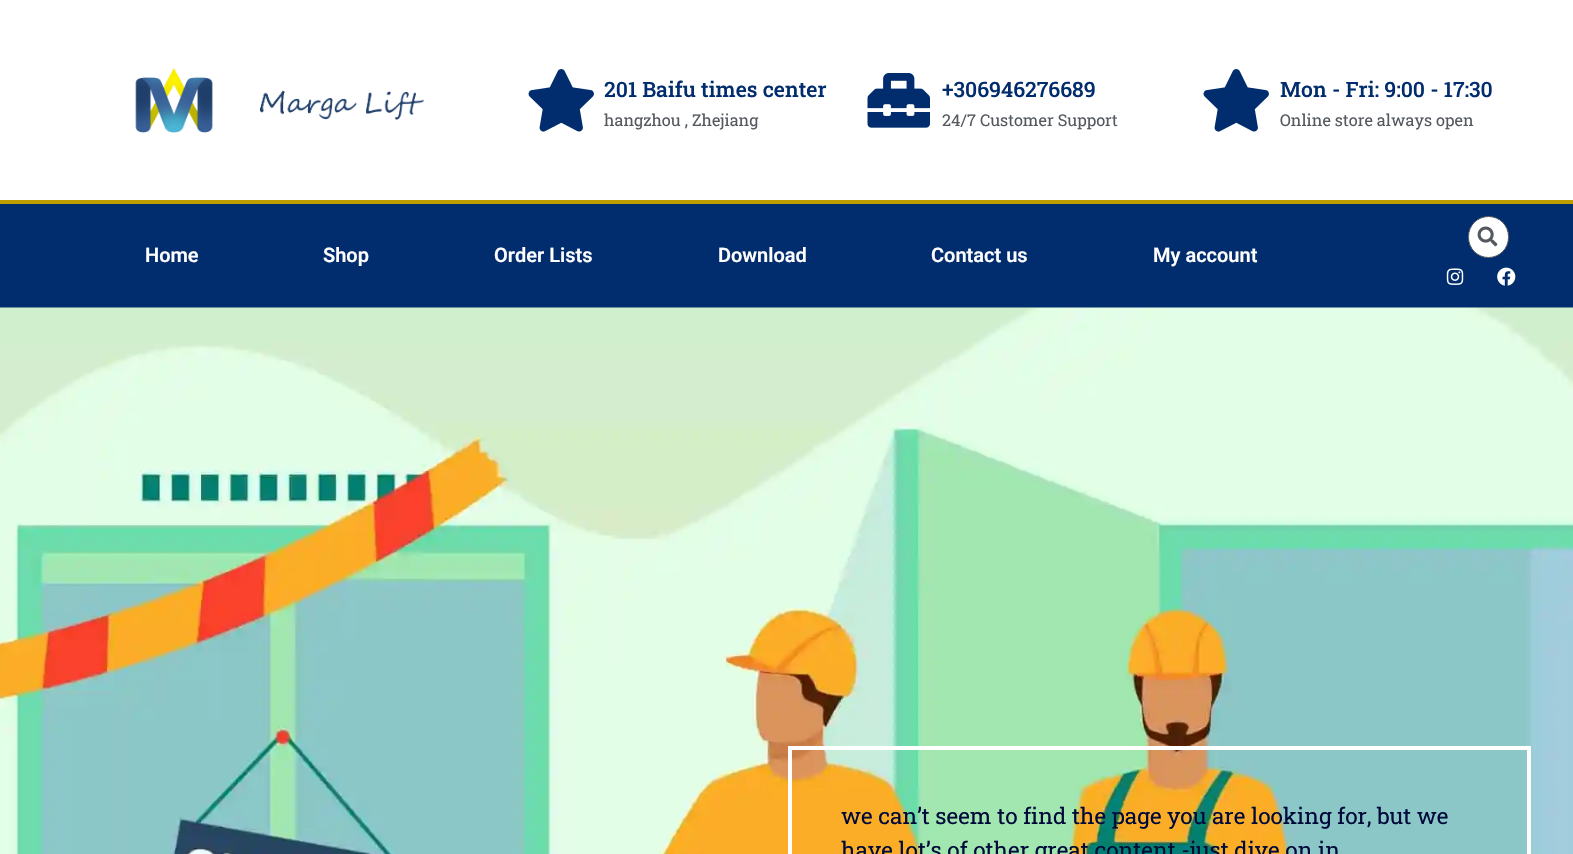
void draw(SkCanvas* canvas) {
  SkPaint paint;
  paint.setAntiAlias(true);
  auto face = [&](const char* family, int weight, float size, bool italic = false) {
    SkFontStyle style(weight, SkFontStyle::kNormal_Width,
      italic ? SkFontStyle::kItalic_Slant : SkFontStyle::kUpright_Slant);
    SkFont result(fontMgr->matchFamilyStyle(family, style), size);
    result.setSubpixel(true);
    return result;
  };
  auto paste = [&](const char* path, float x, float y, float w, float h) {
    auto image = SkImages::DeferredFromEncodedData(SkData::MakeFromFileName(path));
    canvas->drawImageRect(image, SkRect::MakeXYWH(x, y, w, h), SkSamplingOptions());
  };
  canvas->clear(0xffffffff);
  paste("img/1.png", 135, 68, 289, 65);
  paste("img/2.png", 528, 69, 66, 63);
  paste("img/3.png", 867, 73, 63, 55);
  paste("img/2.png", 1203, 69, 66, 63);
  paint.setColor(0xff012c6d);
  canvas->drawRect(SkRect::MakeXYWH(0, 204, 1573, 104), paint);
  paint.setColor(0xffbf9f00);
  canvas->drawRect(SkRect::MakeXYWH(0, 200, 1573, 4), paint);
  paint.setColor(0xffffffff);
  canvas->drawRoundRect(SkRect::MakeXYWH(1468.5f, 216.5f, 40, 41), 20, 20, paint);
  paint.setStroke(true);
  paint.setStrokeWidth(1);
  paint.setColor(0xff54595f);
  canvas->drawRoundRect(SkRect::MakeXYWH(1468.5f, 216.5f, 40, 41), 20, 20, paint);
  paste("img/4.png", 1477, 226, 21, 21);
  paste("img/5.png", 1446, 268, 18, 17);
  paste("img/6.png", 1497, 267, 19, 19);
  paste("img/7.png", 0, 307, 1573, 547);
  paint.setStrokeWidth(4);
  paint.setColor(0xffffffff);
  canvas->drawRect(SkRect::MakeXYWH(790, 748, 739, 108), paint);
  auto f0 = face("Roboto Slab", 500, 21.25f);
  paint.setStroke(false);
  paint.setColor(0xff012c6d);
  canvas->drawString("201 Baifu times center", 604, 97, f0, paint);
  auto f1 = face("Roboto Slab", 400, 16.25f);
  paint.setColor(0xff54595f);
  canvas->drawString("hangzhou , Zhejiang", 604, 126, f1, paint);
  paint.setColor(0xff012c6d);
  canvas->drawString("+306946276689", 942, 97, f0, paint);
  paint.setColor(0xff54595f);
  canvas->drawString("24/7 Customer Support", 942, 126, f1, paint);
  paint.setColor(0xff012c6d);
  canvas->drawString("Mon - Fri: 9:00 - 17:30", 1280, 97, f0, paint);
  paint.setColor(0xff54595f);
  canvas->drawString("Online store always open", 1280, 126, f1, paint);
  auto f2 = face("Roboto", 600, 20);
  paint.setColor(0xffffffff);
  {
    const struct { const char* s; float x, y; } items[] = {
      {"Home", 145, 262},
      {"Shop", 323, 262},
      {"Order Lists", 494, 262},
      {"Download", 718, 262},
      {"Contact us", 931, 262},
      {"My account", 1153, 262},
    };
    for (auto [s, x, y] : items) {
      canvas->drawString(s, x, y, f2, paint);
    }
  }
  auto f3 = face("Roboto Slab", 400, 22.5f);
  paint.setColor(0xff000a3a);
  canvas->drawString("we can’t seem to find the page you are looking for, but we", 841, 824, f3, paint);
  canvas->drawString("have lot’s of other great content -just dive on in", 841, 858, f3, paint);
}
